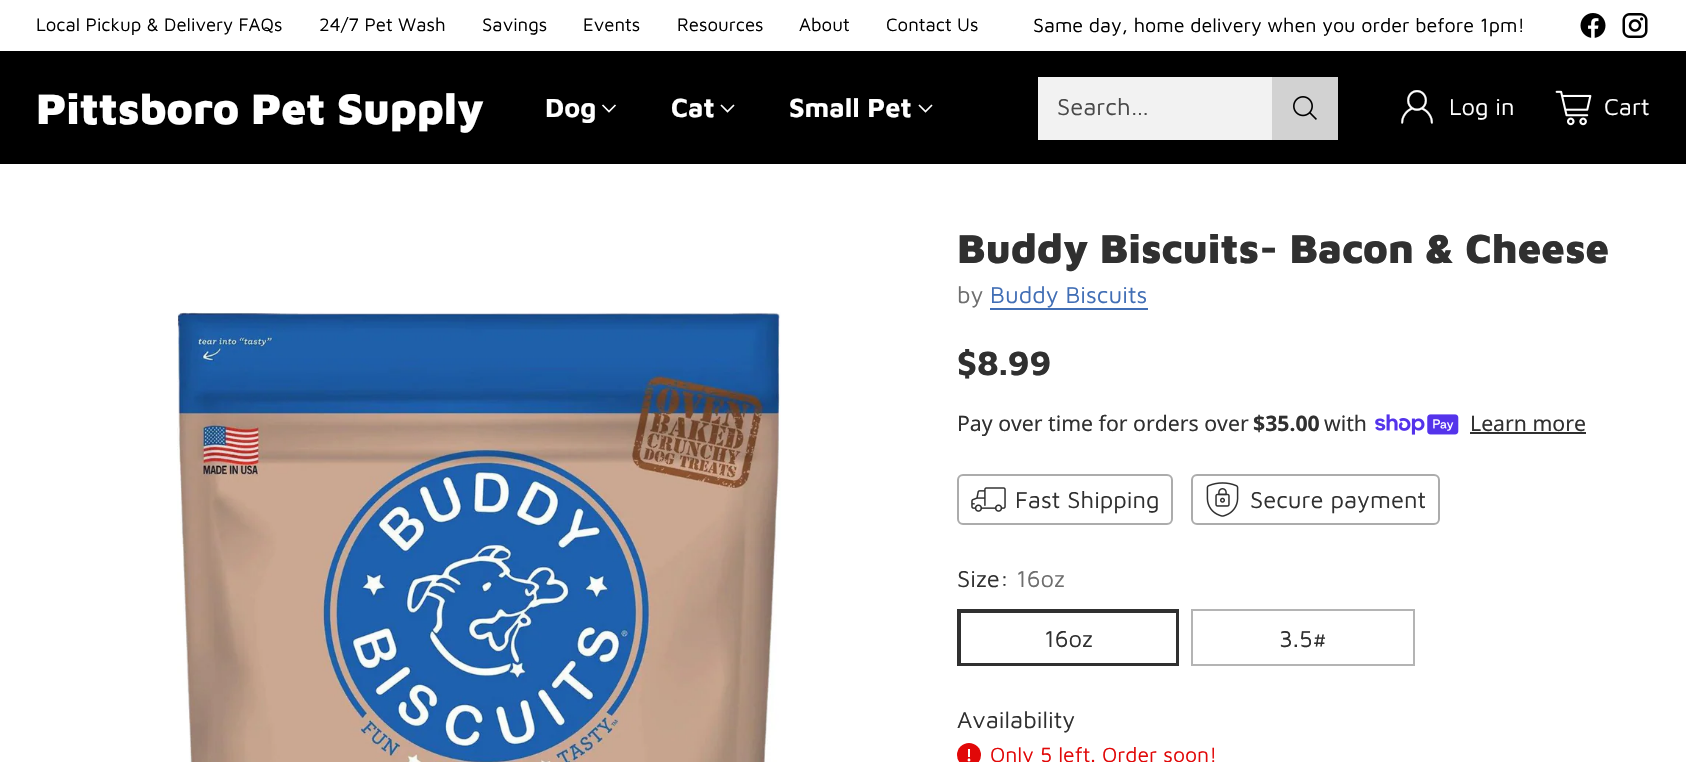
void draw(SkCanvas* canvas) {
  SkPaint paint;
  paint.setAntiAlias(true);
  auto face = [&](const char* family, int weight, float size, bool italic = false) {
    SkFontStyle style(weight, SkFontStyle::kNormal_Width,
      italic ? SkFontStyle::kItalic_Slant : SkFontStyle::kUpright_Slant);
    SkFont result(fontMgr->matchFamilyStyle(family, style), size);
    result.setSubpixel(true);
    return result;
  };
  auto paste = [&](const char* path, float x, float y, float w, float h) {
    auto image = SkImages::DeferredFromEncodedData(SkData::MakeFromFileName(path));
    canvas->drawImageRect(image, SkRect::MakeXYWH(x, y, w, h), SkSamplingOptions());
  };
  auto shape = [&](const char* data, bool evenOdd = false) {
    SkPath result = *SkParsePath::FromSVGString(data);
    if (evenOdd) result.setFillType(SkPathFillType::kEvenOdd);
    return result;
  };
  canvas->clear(0xffffffff);
  paste("img/1.png", 1580, 13, 26, 25);
  paste("img/2.png", 1622, 13, 26, 25);
  paint.setColor(0xff000000);
  canvas->drawRect(SkRect::MakeXYWH(0, 51, 1686, 113), paint);
  paint.setStroke(true);
  paint.setStrokeWidth(1.7f);
  paint.setColor(0xffffffff);
  canvas->drawPath(shape("M602.5 105L609 111.5L615.5 105"), paint);
  canvas->drawPath(shape("M721 105L727.5 111.5L734 105"), paint);
  canvas->drawPath(shape("M919 105L925.5 111.5L932 105"), paint);
  paint.setStrokeWidth(2);
  paint.setColor(0xfff2f2f2);
  canvas->drawRect(SkRect::MakeXYWH(1039, 78, 298, 61), paint);
  paint.setStroke(false);
  canvas->drawRect(SkRect::MakeXYWH(1040, 79, 232, 59), paint);
  paint.setColor(0xffd2d2d2);
  canvas->drawRect(SkRect::MakeXYWH(1272, 77, 66, 63), paint);
  paste("img/3.png", 1293, 96, 24, 24);
  paste("img/4.png", 1401, 90, 32, 34);
  paste("img/5.png", 1555, 90, 37, 36);
  paste("img/6.png", 177, 312, 604, 450);
  paint.setColor(0xff416eb5);
  canvas->drawRect(SkRect::MakeXYWH(990, 308, 158, 2), paint);
  paste("img/7.png", 1375, 414, 84, 21);
  paint.setColor(0xff303030);
  canvas->drawRect(SkRect::MakeXYWH(1470, 432, 116, 2), paint);
  paint.setStroke(true);
  paint.setColor(0xffacacac);
  canvas->drawRoundRect(SkRect::MakeXYWH(958, 475, 214, 49), 5, 5, paint);
  paste("img/8.png", 971, 487, 35, 25);
  canvas->drawRoundRect(SkRect::MakeXYWH(1192, 475, 247, 49), 5, 5, paint);
  paste("img/9.png", 1206, 482, 33, 35);
  paint.setColor(0xff303030);
  canvas->drawRect(SkRect::MakeXYWH(960, 612, 217, 52), paint);
  canvas->drawRect(SkRect::MakeXYWH(958, 610, 220, 55), paint);
  paint.setColor(0xffb4b4b4);
  canvas->drawRect(SkRect::MakeXYWH(1192, 610, 222, 55), paint);
  paint.setStroke(false);
  paint.setColor(0xffe10808);
  canvas->drawCircle(969, 755, 12, paint);
  paste("img/10.png", 967, 749, 4, 13);
  auto f0 = face("Maven Pro", 400, 18.6f);
  paint.setColor(0xff000000);
  {
    const struct { const char* s; float x, y; } items[] = {
      {"Local Pickup & Delivery FAQs", 36, 31},
      {"24/7 Pet Wash", 319, 31},
      {"Savings", 482, 31},
      {"Events", 583, 31},
      {"Resources", 677, 31},
      {"About", 799, 31},
      {"Contact Us", 886, 31},
    };
    for (auto [s, x, y] : items) {
      canvas->drawString(s, x, y, f0, paint);
    }
  }
  auto f1 = face("Maven Pro", 400, 19.75f);
  canvas->drawString("Same day, home delivery when you order before 1pm!", 1033, 32, f1, paint);
  auto f2 = face("Maven Pro", 900, 44);
  paint.setColor(0xffffffff);
  canvas->drawString("Pittsboro Pet Supply", 36, 124, f2, paint);
  auto f3 = face("Maven Pro", 700, 27);
  {
    const struct { const char* s; float x, y; } items[] = {
      {"Dog", 545, 117},
      {"Cat", 671, 117},
      {"Small Pet", 789, 117},
    };
    for (auto [s, x, y] : items) {
      canvas->drawString(s, x, y, f3, paint);
    }
  }
  auto f4 = face("Maven Pro", 400, 23.75f);
  paint.setColor(0xff494949);
  canvas->drawString("Search…", 1057, 115, f4, paint);
  paint.setColor(0xffffffff);
  canvas->drawString("Log in", 1449, 115, f4, paint);
  canvas->drawString("Cart", 1604, 115, f4, paint);
  auto f5 = face("Maven Pro", 900, 41.5f);
  paint.setColor(0xff303030);
  canvas->drawString("Buddy Biscuits- Bacon & Cheese", 957, 263, f5, paint);
  paint.setColor(0xff6e6e6e);
  canvas->drawString("by", 957, 303, f4, paint);
  paint.setColor(0xff416eb5);
  canvas->drawString("Buddy Biscuits", 990, 303, f4, paint);
  auto f6 = face("Maven Pro", 700, 34.5f);
  paint.setColor(0xff303030);
  canvas->drawString("$8.99", 957, 375, f6, paint);
  auto f7 = face("Noto Sans", 400, 21.25f);
  canvas->drawString("Pay over time for orders over", 957, 431, f7, paint);
  auto f8 = face("Noto Sans", 700, 21.25f);
  canvas->drawString("$35.00", 1253, 431, f8, paint);
  canvas->drawString("with", 1324, 431, f7, paint);
  canvas->drawString("Learn more", 1470, 431, f7, paint);
  {
    const struct { const char* s; float x, y; } items[] = {
      {"Fast Shipping", 1015, 508},
      {"Secure payment", 1250, 508},
      {"Size:", 957, 587},
    };
    for (auto [s, x, y] : items) {
      canvas->drawString(s, x, y, f4, paint);
    }
  }
  paint.setColor(0xff6e6e6e);
  canvas->drawString("16oz", 1016, 587, f4, paint);
  paint.setColor(0xff303030);
  {
    const struct { const char* s; float x, y; } items[] = {
      {"16oz", 1044, 647},
      {"3.5#", 1279, 647},
      {"Availability", 957, 728},
    };
    for (auto [s, x, y] : items) {
      canvas->drawString(s, x, y, f4, paint);
    }
  }
  auto f9 = face("Maven Pro", 400, 21.25f);
  paint.setColor(0xffe10808);
  canvas->drawString("Only 5 left. Order soon!", 990, 762, f9, paint);
}
